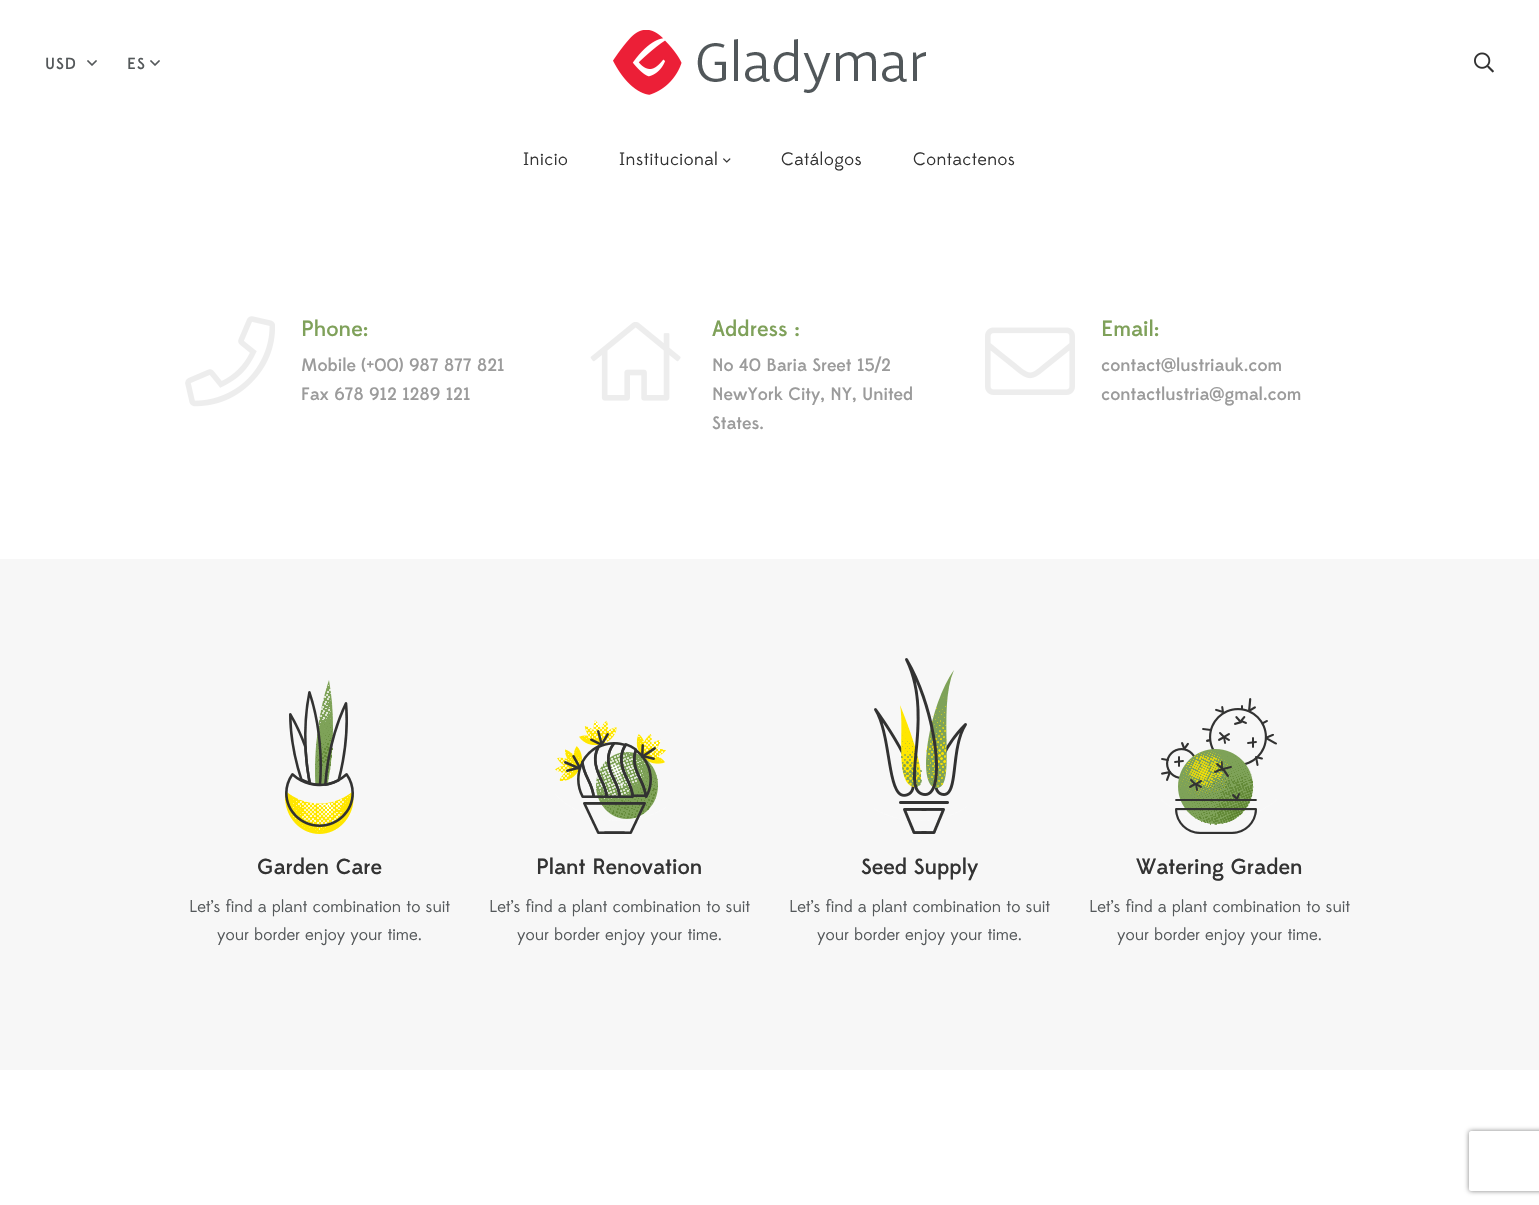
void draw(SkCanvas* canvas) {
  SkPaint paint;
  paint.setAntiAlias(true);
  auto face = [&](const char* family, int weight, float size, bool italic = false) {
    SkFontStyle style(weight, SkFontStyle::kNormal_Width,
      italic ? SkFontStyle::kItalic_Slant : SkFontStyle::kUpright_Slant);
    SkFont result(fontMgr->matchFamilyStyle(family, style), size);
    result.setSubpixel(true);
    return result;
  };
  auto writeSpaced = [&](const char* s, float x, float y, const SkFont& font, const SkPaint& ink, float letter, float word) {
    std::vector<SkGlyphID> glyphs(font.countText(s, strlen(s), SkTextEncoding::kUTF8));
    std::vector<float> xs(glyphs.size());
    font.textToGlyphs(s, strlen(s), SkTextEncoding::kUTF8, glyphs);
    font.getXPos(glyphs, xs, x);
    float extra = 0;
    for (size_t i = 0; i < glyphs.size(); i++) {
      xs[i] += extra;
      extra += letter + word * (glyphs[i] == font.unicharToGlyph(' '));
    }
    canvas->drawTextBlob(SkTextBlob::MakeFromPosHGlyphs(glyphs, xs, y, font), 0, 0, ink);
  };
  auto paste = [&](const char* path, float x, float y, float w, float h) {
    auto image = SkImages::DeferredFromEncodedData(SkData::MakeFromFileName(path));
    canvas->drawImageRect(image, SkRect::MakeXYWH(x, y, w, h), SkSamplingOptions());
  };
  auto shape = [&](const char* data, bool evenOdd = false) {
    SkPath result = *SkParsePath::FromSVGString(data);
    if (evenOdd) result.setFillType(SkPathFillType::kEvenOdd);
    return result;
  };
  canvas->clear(0xffffffff);
  paste("img/1.png", 87, 60, 10, 6);
  paste("img/1.png", 150, 60, 10, 6);
  paste("img/2.png", 613, 30, 313, 65);
  paste("img/3.png", 1474, 52, 20, 21);
  paste("img/4.png", 723, 158, 8, 5);
  paste("img/5.png", 185, 316, 90, 91);
  paste("img/6.png", 590, 322, 91, 79);
  paste("img/7.png", 985, 327, 90, 68);
  paint.setColor(0xfff7f7f7);
  canvas->drawRect(SkRect::MakeXYWH(0, 559, 1539, 511), paint);
  paste("img/8.png", 285, 680, 69, 154);
  paste("img/9.png", 555, 720, 111, 114);
  paste("img/10.png", 874, 658, 93, 176);
  paste("img/11.png", 1161, 698, 116, 136);
  canvas->save();
  canvas->clipPath(shape("M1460 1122H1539V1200H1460ZM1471 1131H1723C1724 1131 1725 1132 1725 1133V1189C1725 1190 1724 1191 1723 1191H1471C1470 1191 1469 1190 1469 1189V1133C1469 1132 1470 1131 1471 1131Z", true), true);
  paint.setColor(0xff808080);
  paint.setMaskFilter(SkMaskFilter::MakeBlur(kNormal_SkBlurStyle, 2.5f));
  canvas->drawRoundRect(SkRect::MakeXYWH(1469, 1131, 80, 60), 2, 2, paint);
  paint.setMaskFilter(nullptr);
  canvas->restore();
  auto f0 = face("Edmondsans", 500, 16);
  paint.setColor(0xff54585a);
  writeSpaced("USD", 45, 69, f0, paint, 1, 0);
  writeSpaced("ES", 127, 69, f0, paint, 1, 0);
  auto f1 = face("Edmondsans", 400, 18);
  paint.setColor(0xff333333);
  {
    const struct { const char* s; float x, y; } items[] = {
      {"Inicio", 523, 165},
      {"Institucional", 619, 165},
      {"Catálogos", 781, 165},
      {"Contactenos", 913, 165},
    };
    for (auto [s, x, y] : items) {
      writeSpaced(s, x, y, f1, paint, 0.5f, 0);
    }
  }
  auto f2 = face("Edmondsans", 500, 22);
  paint.setColor(0xff7fa15a);
  canvas->drawString("Phone:", 301, 336, f2, paint);
  auto f3 = face("Edmondsans", 500, 18);
  paint.setColor(0xff9b9b9b);
  canvas->drawString("Mobile (+00) 987 877 821", 301, 371, f3, paint);
  canvas->drawString("Fax 678 912 1289 121", 301, 400, f3, paint);
  paint.setColor(0xff7fa15a);
  canvas->drawString("Address :", 712, 336, f2, paint);
  paint.setColor(0xff9b9b9b);
  {
    const struct { const char* s; float x, y; } items[] = {
      {"No 40 Baria Sreet 15/2", 712, 371},
      {"NewYork City, NY, United", 712, 400},
      {"States.", 712, 429},
    };
    for (auto [s, x, y] : items) {
      canvas->drawString(s, x, y, f3, paint);
    }
  }
  paint.setColor(0xff7fa15a);
  canvas->drawString("Email:", 1101, 336, f2, paint);
  paint.setColor(0xff9b9b9b);
  canvas->drawString("contact@lustriauk.com", 1101, 371, f3, paint);
  canvas->drawString("contactlustria@gmal.com", 1101, 400, f3, paint);
  paint.setColor(0xff333333);
  canvas->drawString("Garden Care", 257, 874, f2, paint);
  auto f4 = face("Edmondsans", 400, 17);
  paint.setColor(0xff54585a);
  canvas->drawString("Let’s find a plant combination to suit", 189, 912, f4, paint);
  canvas->drawString("your border enjoy your time.", 217, 940, f4, paint);
  paint.setColor(0xff333333);
  canvas->drawString("Plant Renovation", 536, 874, f2, paint);
  paint.setColor(0xff54585a);
  canvas->drawString("Let’s find a plant combination to suit", 489, 912, f4, paint);
  canvas->drawString("your border enjoy your time.", 517, 940, f4, paint);
  paint.setColor(0xff333333);
  canvas->drawString("Seed Supply", 861, 874, f2, paint);
  paint.setColor(0xff54585a);
  canvas->drawString("Let’s find a plant combination to suit", 789, 912, f4, paint);
  canvas->drawString("your border enjoy your time.", 817, 940, f4, paint);
  paint.setColor(0xff333333);
  canvas->drawString("Watering Graden", 1136, 874, f2, paint);
  paint.setColor(0xff54585a);
  canvas->drawString("Let’s find a plant combination to suit", 1089, 912, f4, paint);
  canvas->drawString("your border enjoy your time.", 1117, 940, f4, paint);
}
